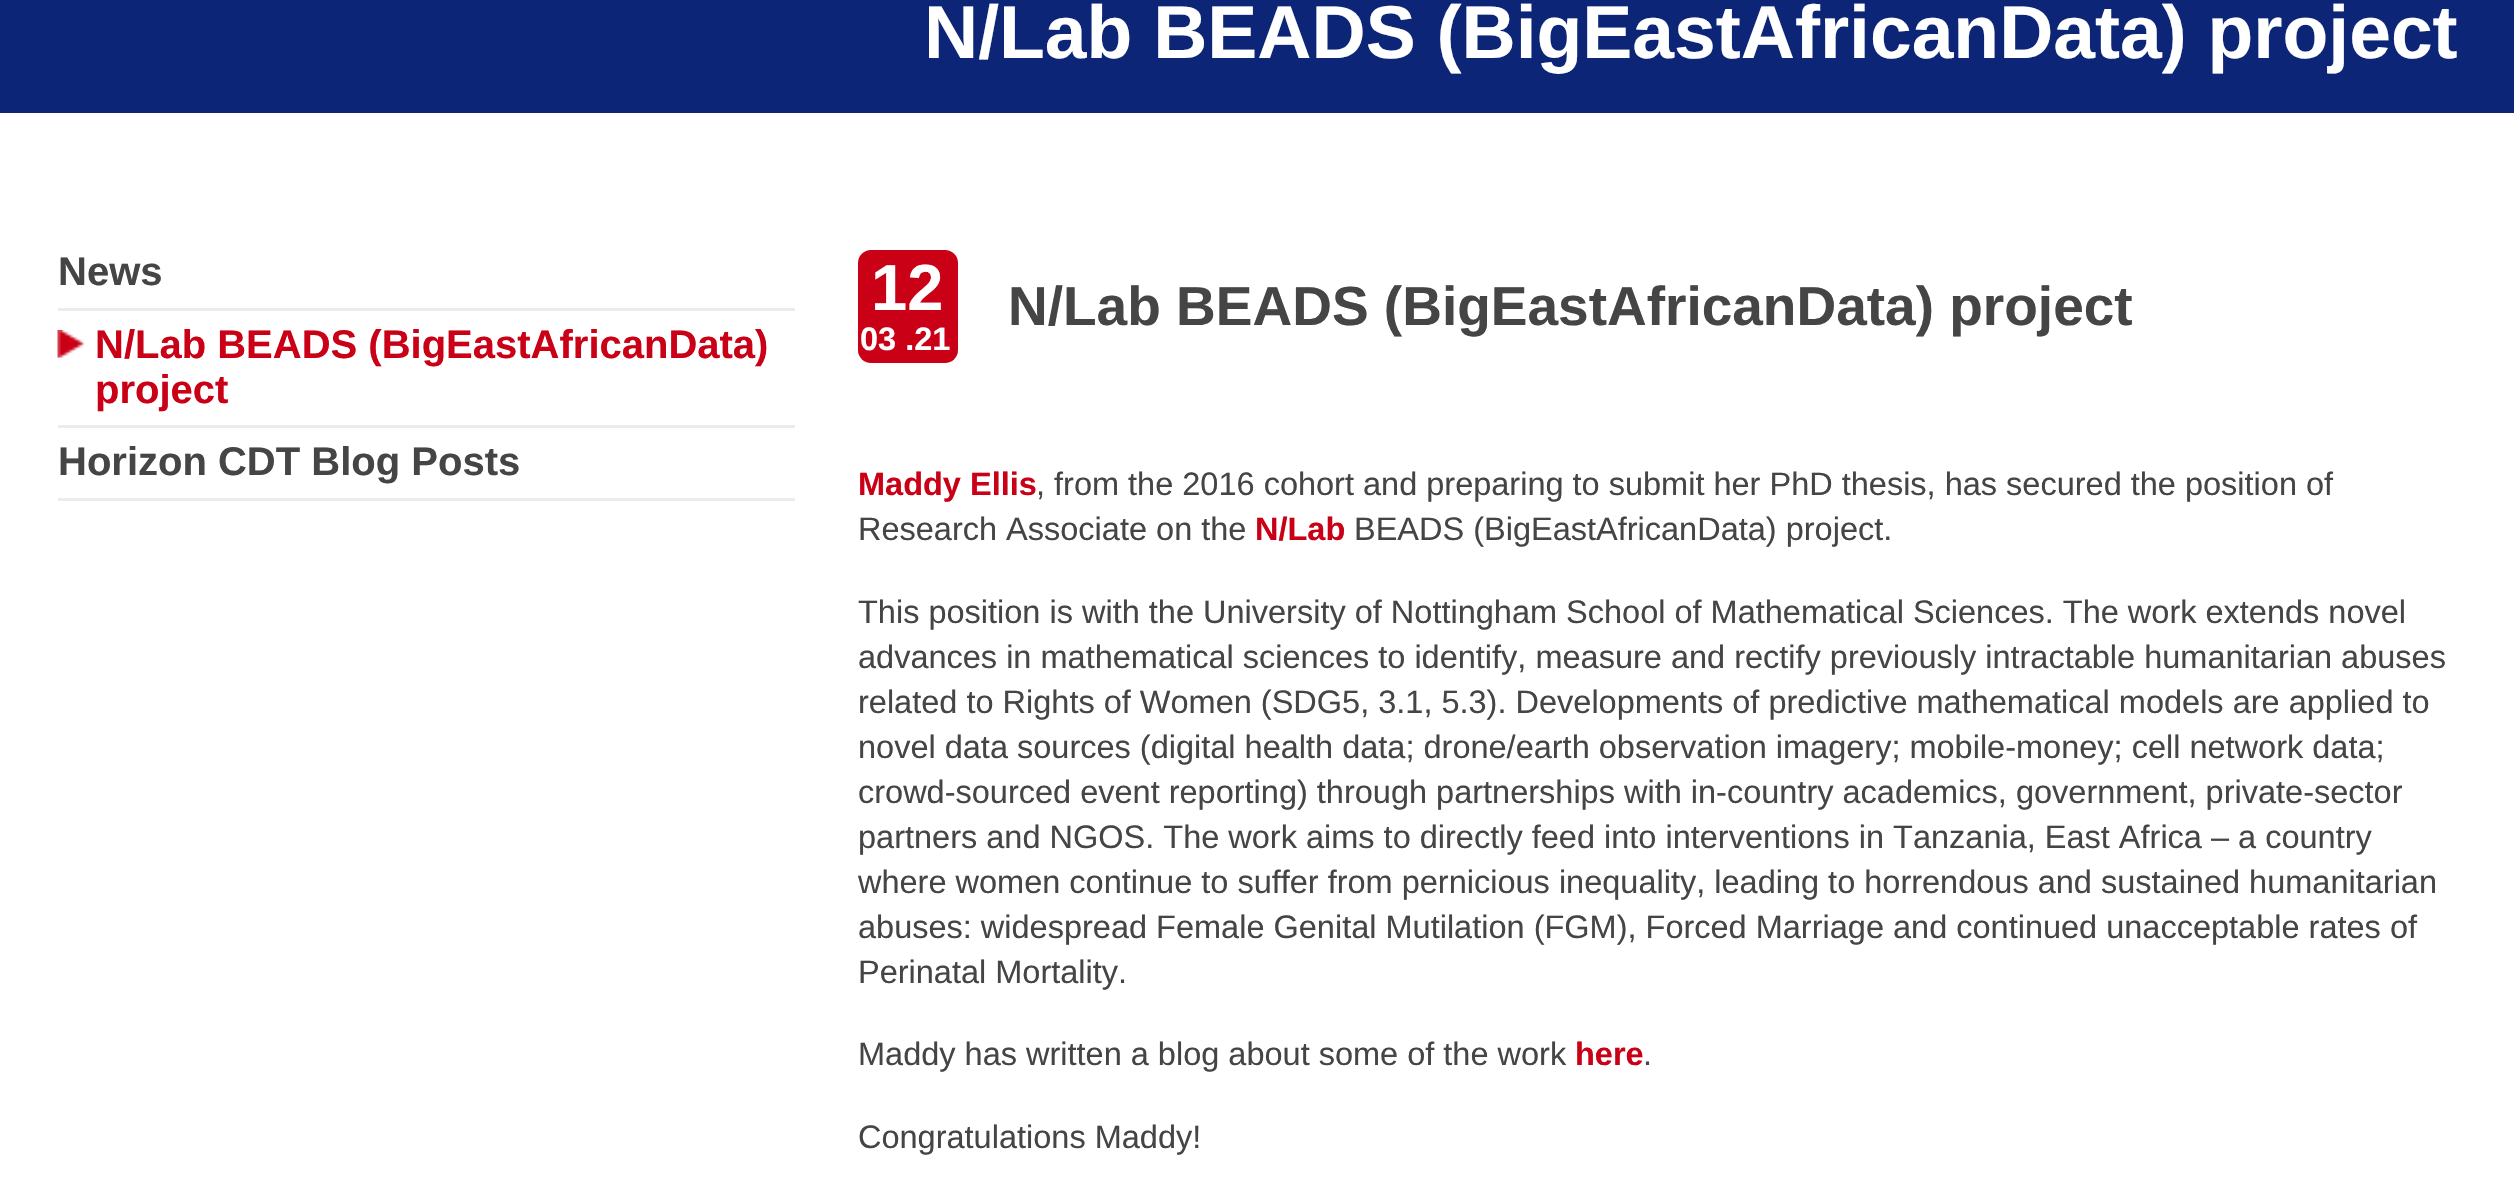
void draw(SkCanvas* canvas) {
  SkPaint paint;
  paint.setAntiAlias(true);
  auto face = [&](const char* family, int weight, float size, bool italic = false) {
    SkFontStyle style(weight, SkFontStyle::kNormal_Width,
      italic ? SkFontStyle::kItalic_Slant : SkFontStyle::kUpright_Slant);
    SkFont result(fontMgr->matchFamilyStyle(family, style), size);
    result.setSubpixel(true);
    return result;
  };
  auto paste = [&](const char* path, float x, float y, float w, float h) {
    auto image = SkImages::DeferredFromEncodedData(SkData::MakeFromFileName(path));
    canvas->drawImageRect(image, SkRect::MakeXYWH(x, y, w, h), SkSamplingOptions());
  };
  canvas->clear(0xffffffff);
  paint.setColor(0xff0c2577);
  canvas->drawRect(SkRect::MakeXYWH(0, 0, 2514, 113), paint);
  paint.setColor(0xffececec);
  canvas->drawRect(SkRect::MakeXYWH(58, 308, 737, 3), paint);
  paste("img/1.png", 57, 330, 28, 28);
  canvas->drawRect(SkRect::MakeXYWH(58, 425, 737, 3), paint);
  canvas->drawRect(SkRect::MakeXYWH(58, 498, 737, 3), paint);
  paint.setColor(0xffc90016);
  canvas->drawRoundRect(SkRect::MakeXYWH(858, 250, 100, 113), 13, 13, paint);
  auto f0 = face("Liberation Sans", 700, 75);
  paint.setColor(0xffffffff);
  canvas->drawString("N/Lab BEADS (BigEastAfricanData) project", 924, 58, f0, paint);
  auto f1 = face("Liberation Sans", 700, 40);
  paint.setColor(0xff454545);
  canvas->drawString("News", 58, 285, f1, paint);
  paint.setColor(0xffc90016);
  canvas->drawString("N/Lab BEADS (BigEastAfricanData)", 95, 358, f1, paint);
  canvas->drawString("project", 95, 403, f1, paint);
  paint.setColor(0xff454545);
  canvas->drawString("Horizon CDT Blog Posts", 58, 475, f1, paint);
  auto f2 = face("Liberation Sans", 700, 65);
  paint.setColor(0xffffffff);
  canvas->drawString("12", 871, 310, f2, paint);
  auto f3 = face("Liberation Sans", 700, 32.5f);
  canvas->drawString("03 .21", 860, 350, f3, paint);
  auto f4 = face("Liberation Sans", 700, 55);
  paint.setColor(0xff454545);
  canvas->drawString("N/Lab BEADS (BigEastAfricanData) project", 1008, 325, f4, paint);
  paint.setColor(0xffc90016);
  canvas->drawString("Maddy Ellis", 858, 495, f3, paint);
  auto f5 = face("Liberation Sans", 400, 32.5f);
  paint.setColor(0xff454545);
  canvas->drawString(", from the 2016 cohort and preparing to submit her PhD thesis, has secured the position of", 1036, 495, f5, paint);
  canvas->drawString("Research Associate on the", 858, 540, f5, paint);
  paint.setColor(0xffc90016);
  canvas->drawString("N/Lab", 1255, 540, f3, paint);
  paint.setColor(0xff454545);
  {
    const struct { const char* s; float x, y; } items[] = {
      {"BEADS (BigEastAfricanData) project.", 1354, 540},
      {"This position is with the University of Nottingham School of Mathematical Sciences. The work extends novel", 858, 623},
      {"advances in mathematical sciences to identify, measure and rectify previously intractable humanitarian abuses", 858, 668},
      {"related to Rights of Women (SDG5, 3.1, 5.3). Developments of predictive mathematical models are applied to", 858, 713},
      {"novel data sources (digital health data; drone/earth observation imagery; mobile-money; cell network data;", 858, 758},
      {"crowd-sourced event reporting) through partnerships with in-country academics, government, private-sector", 858, 803},
      {"partners and NGOS. The work aims to directly feed into interventions in Tanzania, East Africa – a country", 858, 848},
      {"where women continue to suffer from pernicious inequality, leading to horrendous and sustained humanitarian", 858, 893},
      {"abuses: widespread Female Genital Mutilation (FGM), Forced Marriage and continued unacceptable rates of", 858, 938},
      {"Perinatal Mortality.", 858, 983},
      {"Maddy has written a blog about some of the work", 858, 1065},
    };
    for (auto [s, x, y] : items) {
      canvas->drawString(s, x, y, f5, paint);
    }
  }
  paint.setColor(0xffc90016);
  canvas->drawString("here", 1575, 1065, f3, paint);
  paint.setColor(0xff454545);
  canvas->drawString(".", 1643, 1065, f5, paint);
  canvas->drawString("Congratulations Maddy!", 858, 1148, f5, paint);
}
